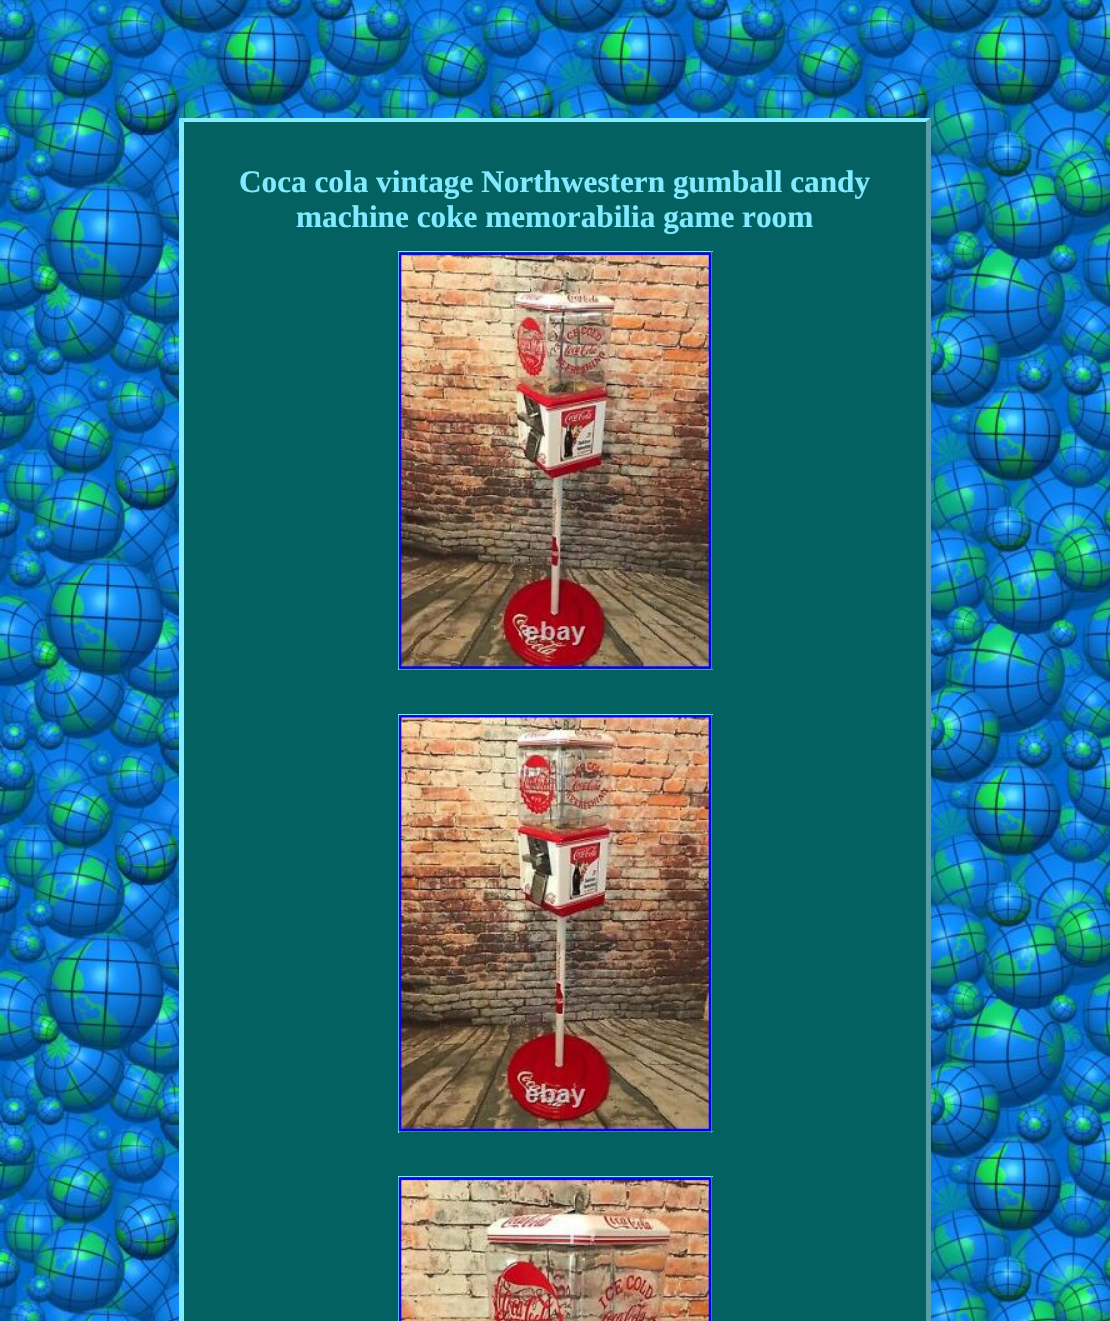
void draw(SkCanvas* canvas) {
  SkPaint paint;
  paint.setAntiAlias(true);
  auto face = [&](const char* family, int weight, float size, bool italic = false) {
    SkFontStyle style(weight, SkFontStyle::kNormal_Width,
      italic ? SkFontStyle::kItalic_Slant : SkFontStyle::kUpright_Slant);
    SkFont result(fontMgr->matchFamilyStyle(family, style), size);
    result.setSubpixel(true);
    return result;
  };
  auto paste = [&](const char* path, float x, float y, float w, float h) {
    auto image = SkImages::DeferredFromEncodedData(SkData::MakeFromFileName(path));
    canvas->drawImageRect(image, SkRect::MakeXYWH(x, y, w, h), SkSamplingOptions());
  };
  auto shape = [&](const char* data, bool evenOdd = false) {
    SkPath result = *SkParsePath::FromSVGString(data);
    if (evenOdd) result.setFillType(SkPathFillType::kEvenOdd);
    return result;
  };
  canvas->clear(0xffffffff);
  paste("img/1.png", 0, 0, 1110, 1321);
  paint.setColor(0xff036161);
  canvas->drawRect(SkRect::MakeXYWH(179, 118, 752, 1203), paint);
  paint.setColor(0xff83ebff);
  canvas->drawPath(shape("M179 118H931L926 122H184Z"), paint);
  paint.setColor(0xff579daa);
  canvas->drawPath(shape("M931 118V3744L926 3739V122Z"), paint);
  paint.setColor(0xff83ebff);
  canvas->drawPath(shape("M179 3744V118L184 122V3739Z"), paint);
  {
    const struct { float x, y, w, h; SkColor color; } items[] = {
      {398, 251, 315, 1, 0xff83ebff},
      {711, 251, 1, 419, 0xff579daa},
      {398, 669, 315, 1, 0xff579daa},
      {398, 251, 1, 419, 0xff83ebff},
    };
    for (auto [x, y, w, h, color] : items) {
      paint.setColor(color);
      canvas->drawRect(SkRect::MakeXYWH(x, y, w, h), paint);
    }
  }
  paste("img/2.png", 398, 252, 314, 417);
  {
    const struct { float x, y, w, h; SkColor color; } items[] = {
      {398, 714, 315, 1, 0xff83ebff},
      {711, 714, 1, 419, 0xff579daa},
      {398, 1131, 315, 1, 0xff579daa},
      {398, 714, 1, 419, 0xff83ebff},
    };
    for (auto [x, y, w, h, color] : items) {
      paint.setColor(color);
      canvas->drawRect(SkRect::MakeXYWH(x, y, w, h), paint);
    }
  }
  paste("img/3.png", 398, 715, 314, 417);
  {
    const struct { float x, y, w, h; SkColor color; } items[] = {
      {398, 1176, 315, 1, 0xff83ebff},
      {398, 1176, 1, 145, 0xff83ebff},
      {711, 1176, 1, 145, 0xff579daa},
    };
    for (auto [x, y, w, h, color] : items) {
      paint.setColor(color);
      canvas->drawRect(SkRect::MakeXYWH(x, y, w, h), paint);
    }
  }
  paste("img/4.png", 398, 1177, 314, 144);
  auto f0 = face("Liberation Serif", 700, 31.25f);
  paint.setColor(0xff83ebff);
  canvas->drawString("Coca cola vintage Northwestern gumball candy", 239, 192, f0, paint);
  canvas->drawString("machine coke memorabilia game room", 296, 227, f0, paint);
}
